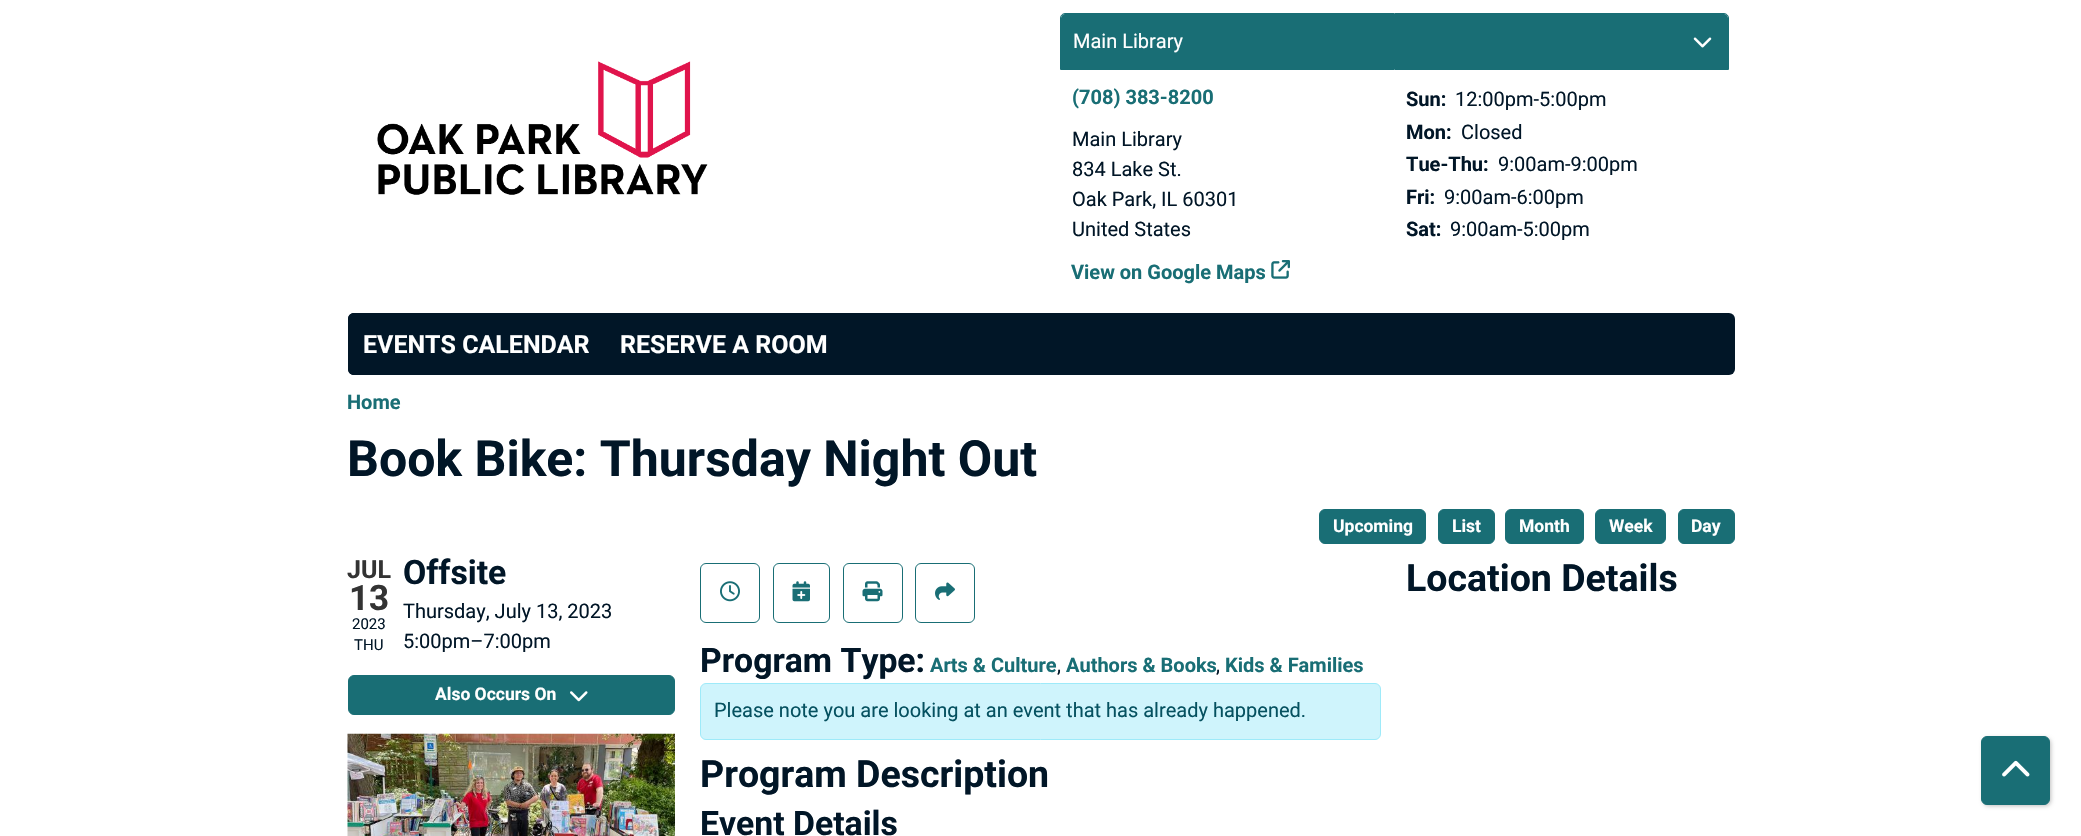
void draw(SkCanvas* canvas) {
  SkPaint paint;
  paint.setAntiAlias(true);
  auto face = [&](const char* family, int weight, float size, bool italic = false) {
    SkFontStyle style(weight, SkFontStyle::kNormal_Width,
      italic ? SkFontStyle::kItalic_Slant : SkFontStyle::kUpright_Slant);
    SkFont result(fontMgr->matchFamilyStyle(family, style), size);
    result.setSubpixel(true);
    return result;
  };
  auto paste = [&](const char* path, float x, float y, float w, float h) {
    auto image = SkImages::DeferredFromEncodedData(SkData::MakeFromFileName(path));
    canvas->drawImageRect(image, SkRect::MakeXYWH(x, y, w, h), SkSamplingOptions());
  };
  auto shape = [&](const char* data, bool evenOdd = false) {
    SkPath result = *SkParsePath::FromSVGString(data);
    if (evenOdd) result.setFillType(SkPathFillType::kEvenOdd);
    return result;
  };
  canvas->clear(0xffffffff);
  paste("img/1.png", 377, 61, 331, 134);
  paint.setColor(0xff196e75);
  canvas->drawPath(shape("M1065 14H1724C1726 14 1728 16 1728 18V69H1061V18C1061 16 1063 14 1065 14Z"), paint);
  paste("img/2.png", 1693, 37, 19, 11);
  paint.setStroke(true);
  paint.setStrokeWidth(1);
  canvas->drawPath(shape("M1065 13.5H1724C1726.5 13.5 1728.5 15.5 1728.5 18V69.5H1060.5V18C1060.5 15.5 1062.5 13.5 1065 13.5Z"), paint);
  paste("img/3.png", 1271, 260, 19, 19);
  paint.setStroke(false);
  paint.setColor(0xff011627);
  canvas->drawRoundRect(SkRect::MakeXYWH(348, 313, 1387, 62), 6, 6, paint);
  canvas->drawPath(shape("M354 313H605V375H354C350.5 375 348 372.5 348 369V319C348 315.5 350.5 313 354 313Z"), paint);
  paint.setColor(0xff196e75);
  canvas->drawRoundRect(SkRect::MakeXYWH(1319.5f, 509.5f, 106, 34), 5.5f, 5.5f, paint);
  paint.setStroke(true);
  canvas->drawRoundRect(SkRect::MakeXYWH(1319.5f, 509.5f, 106, 34), 5.5f, 5.5f, paint);
  paint.setStroke(false);
  canvas->drawRoundRect(SkRect::MakeXYWH(1438.5f, 509.5f, 56, 34), 5.5f, 5.5f, paint);
  paint.setStroke(true);
  canvas->drawRoundRect(SkRect::MakeXYWH(1438.5f, 509.5f, 56, 34), 5.5f, 5.5f, paint);
  paint.setStroke(false);
  canvas->drawRoundRect(SkRect::MakeXYWH(1505.5f, 509.5f, 78, 34), 5.5f, 5.5f, paint);
  paint.setStroke(true);
  canvas->drawRoundRect(SkRect::MakeXYWH(1505.5f, 509.5f, 78, 34), 5.5f, 5.5f, paint);
  paint.setStroke(false);
  canvas->drawRoundRect(SkRect::MakeXYWH(1595.5f, 509.5f, 70, 34), 5.5f, 5.5f, paint);
  paint.setStroke(true);
  canvas->drawRoundRect(SkRect::MakeXYWH(1595.5f, 509.5f, 70, 34), 5.5f, 5.5f, paint);
  paint.setStroke(false);
  canvas->drawRoundRect(SkRect::MakeXYWH(1678.5f, 509.5f, 56, 34), 5.5f, 5.5f, paint);
  paint.setStroke(true);
  canvas->drawRoundRect(SkRect::MakeXYWH(1678.5f, 509.5f, 56, 34), 5.5f, 5.5f, paint);
  paint.setStroke(false);
  canvas->drawRoundRect(SkRect::MakeXYWH(348.5f, 675.5f, 326, 39), 5.5f, 5.5f, paint);
  paint.setStroke(true);
  canvas->drawRoundRect(SkRect::MakeXYWH(348.5f, 675.5f, 326, 39), 5.5f, 5.5f, paint);
  paste("img/4.png", 570, 691, 18, 11);
  paste("img/5.png", 347, 733, 328, 103);
  canvas->drawRoundRect(SkRect::MakeXYWH(700.5f, 563.5f, 59, 59), 5.5f, 5.5f, paint);
  paste("img/6.png", 720, 581, 20, 21);
  canvas->drawRoundRect(SkRect::MakeXYWH(773.5f, 563.5f, 56, 59), 5.5f, 5.5f, paint);
  paste("img/7.png", 792, 581, 18, 21);
  canvas->drawRoundRect(SkRect::MakeXYWH(843.5f, 563.5f, 59, 59), 5.5f, 5.5f, paint);
  paste("img/8.png", 862, 581, 21, 21);
  canvas->drawRoundRect(SkRect::MakeXYWH(915.5f, 563.5f, 59, 59), 5.5f, 5.5f, paint);
  paste("img/9.png", 935, 582, 20, 18);
  paint.setStroke(false);
  paint.setColor(0xffcff4fc);
  canvas->drawRoundRect(SkRect::MakeXYWH(700.5f, 683.5f, 680, 56), 5.5f, 5.5f, paint);
  paint.setStroke(true);
  paint.setColor(0xff9eeaf9);
  canvas->drawRoundRect(SkRect::MakeXYWH(700.5f, 683.5f, 680, 56), 5.5f, 5.5f, paint);
  paint.setStroke(false);
  paint.setColor(0x40000000);
  paint.setMaskFilter(SkMaskFilter::MakeBlur(kNormal_SkBlurStyle, 2));
  canvas->drawRoundRect(SkRect::MakeXYWH(1983, 738, 68, 68), 6, 6, paint);
  paint.setMaskFilter(nullptr);
  paint.setColor(0xff196e75);
  canvas->drawRoundRect(SkRect::MakeXYWH(1981.5f, 736.5f, 68, 68), 5.5f, 5.5f, paint);
  paint.setStroke(true);
  canvas->drawRoundRect(SkRect::MakeXYWH(1981.5f, 736.5f, 68, 68), 5.5f, 5.5f, paint);
  paste("img/10.png", 2002, 760, 28, 17);
  auto f0 = face("Roboto", 400, 20);
  paint.setStroke(false);
  paint.setColor(0xffffffff);
  canvas->drawString("Main Library", 1073, 48, f0, paint);
  auto f1 = face("Roboto", 700, 20);
  paint.setColor(0xff196e75);
  canvas->drawString("(708) 383-8200", 1072, 104, f1, paint);
  paint.setColor(0xff011627);
  {
    const struct { const char* s; float x, y; } items[] = {
      {"Main Library", 1072, 146},
      {"834 Lake St.", 1072, 176},
      {"Oak Park, IL 60301", 1072, 206},
      {"United States", 1072, 236},
    };
    for (auto [s, x, y] : items) {
      canvas->drawString(s, x, y, f0, paint);
    }
  }
  paint.setColor(0xff196e75);
  canvas->drawString("View on Google Maps", 1071, 279, f1, paint);
  paint.setColor(0xff011627);
  canvas->drawString("Sun:", 1406, 106, f1, paint);
  canvas->drawString("12:00pm-5:00pm", 1455, 106, f0, paint);
  canvas->drawString("Mon:", 1406, 139, f1, paint);
  canvas->drawString("Closed", 1461, 139, f0, paint);
  canvas->drawString("Tue-Thu:", 1406, 171, f1, paint);
  canvas->drawString("9:00am-9:00pm", 1498, 171, f0, paint);
  canvas->drawString("Fri:", 1406, 204, f1, paint);
  canvas->drawString("9:00am-6:00pm", 1444, 204, f0, paint);
  canvas->drawString("Sat:", 1406, 236, f1, paint);
  canvas->drawString("9:00am-5:00pm", 1450, 236, f0, paint);
  auto f2 = face("Roboto", 700, 25);
  paint.setColor(0xffffffff);
  canvas->drawString("EVENTS CALENDAR", 363, 353, f2, paint);
  canvas->drawString("RESERVE A ROOM", 620, 353, f2, paint);
  paint.setColor(0xff196e75);
  canvas->drawString("Home", 347, 409, f1, paint);
  auto f3 = face("Roboto", 700, 50);
  paint.setColor(0xff011627);
  canvas->drawString("Book Bike: Thursday Night Out", 347, 476, f3, paint);
  auto f4 = face("Roboto", 700, 17.5f);
  paint.setColor(0xffffffff);
  {
    const struct { const char* s; float x, y; } items[] = {
      {"Upcoming", 1333, 532},
      {"List", 1452, 532},
      {"Month", 1519, 532},
      {"Week", 1609, 532},
      {"Day", 1691, 532},
    };
    for (auto [s, x, y] : items) {
      canvas->drawString(s, x, y, f4, paint);
    }
  }
  paint.setColor(0xff333333);
  canvas->drawString("JUL", 347, 578, f2, paint);
  auto f5 = face("Roboto", 700, 35);
  canvas->drawString("13", 349, 610, f5, paint);
  auto f6 = face("Roboto", 400, 15);
  paint.setColor(0xff011627);
  canvas->drawString("2023", 352, 629, f6, paint);
  canvas->drawString("THU", 354, 650, f6, paint);
  auto f7 = face("Roboto", 700, 33.75f);
  canvas->drawString("Offsite", 403, 584, f7, paint);
  canvas->drawString("Thursday, July 13, 2023", 403, 618, f0, paint);
  canvas->drawString("5:00pm–7:00pm", 403, 648, f0, paint);
  paint.setColor(0xffffffff);
  canvas->drawString("Also Occurs On", 435, 700, f4, paint);
  auto f8 = face("Roboto", 700, 37.5f);
  paint.setColor(0xff011627);
  canvas->drawString("Location Details", 1406, 591, f8, paint);
  canvas->drawString("Program Type:", 700, 672, f7, paint);
  paint.setColor(0xff196e75);
  canvas->drawString("Arts & Culture", 930, 672, f1, paint);
  paint.setColor(0xff011627);
  canvas->drawString(",", 1057, 672, f0, paint);
  paint.setColor(0xff196e75);
  canvas->drawString("Authors & Books", 1066, 672, f1, paint);
  paint.setColor(0xff011627);
  canvas->drawString(",", 1216, 672, f0, paint);
  paint.setColor(0xff196e75);
  canvas->drawString("Kids & Families", 1225, 672, f1, paint);
  paint.setColor(0xff055160);
  canvas->drawString("Please note you are looking at an event that has already happened.", 714, 717, f0, paint);
  paint.setColor(0xff011627);
  canvas->drawString("Program Description", 700, 787, f8, paint);
  canvas->drawString("Event Details", 700, 835, f7, paint);
}
